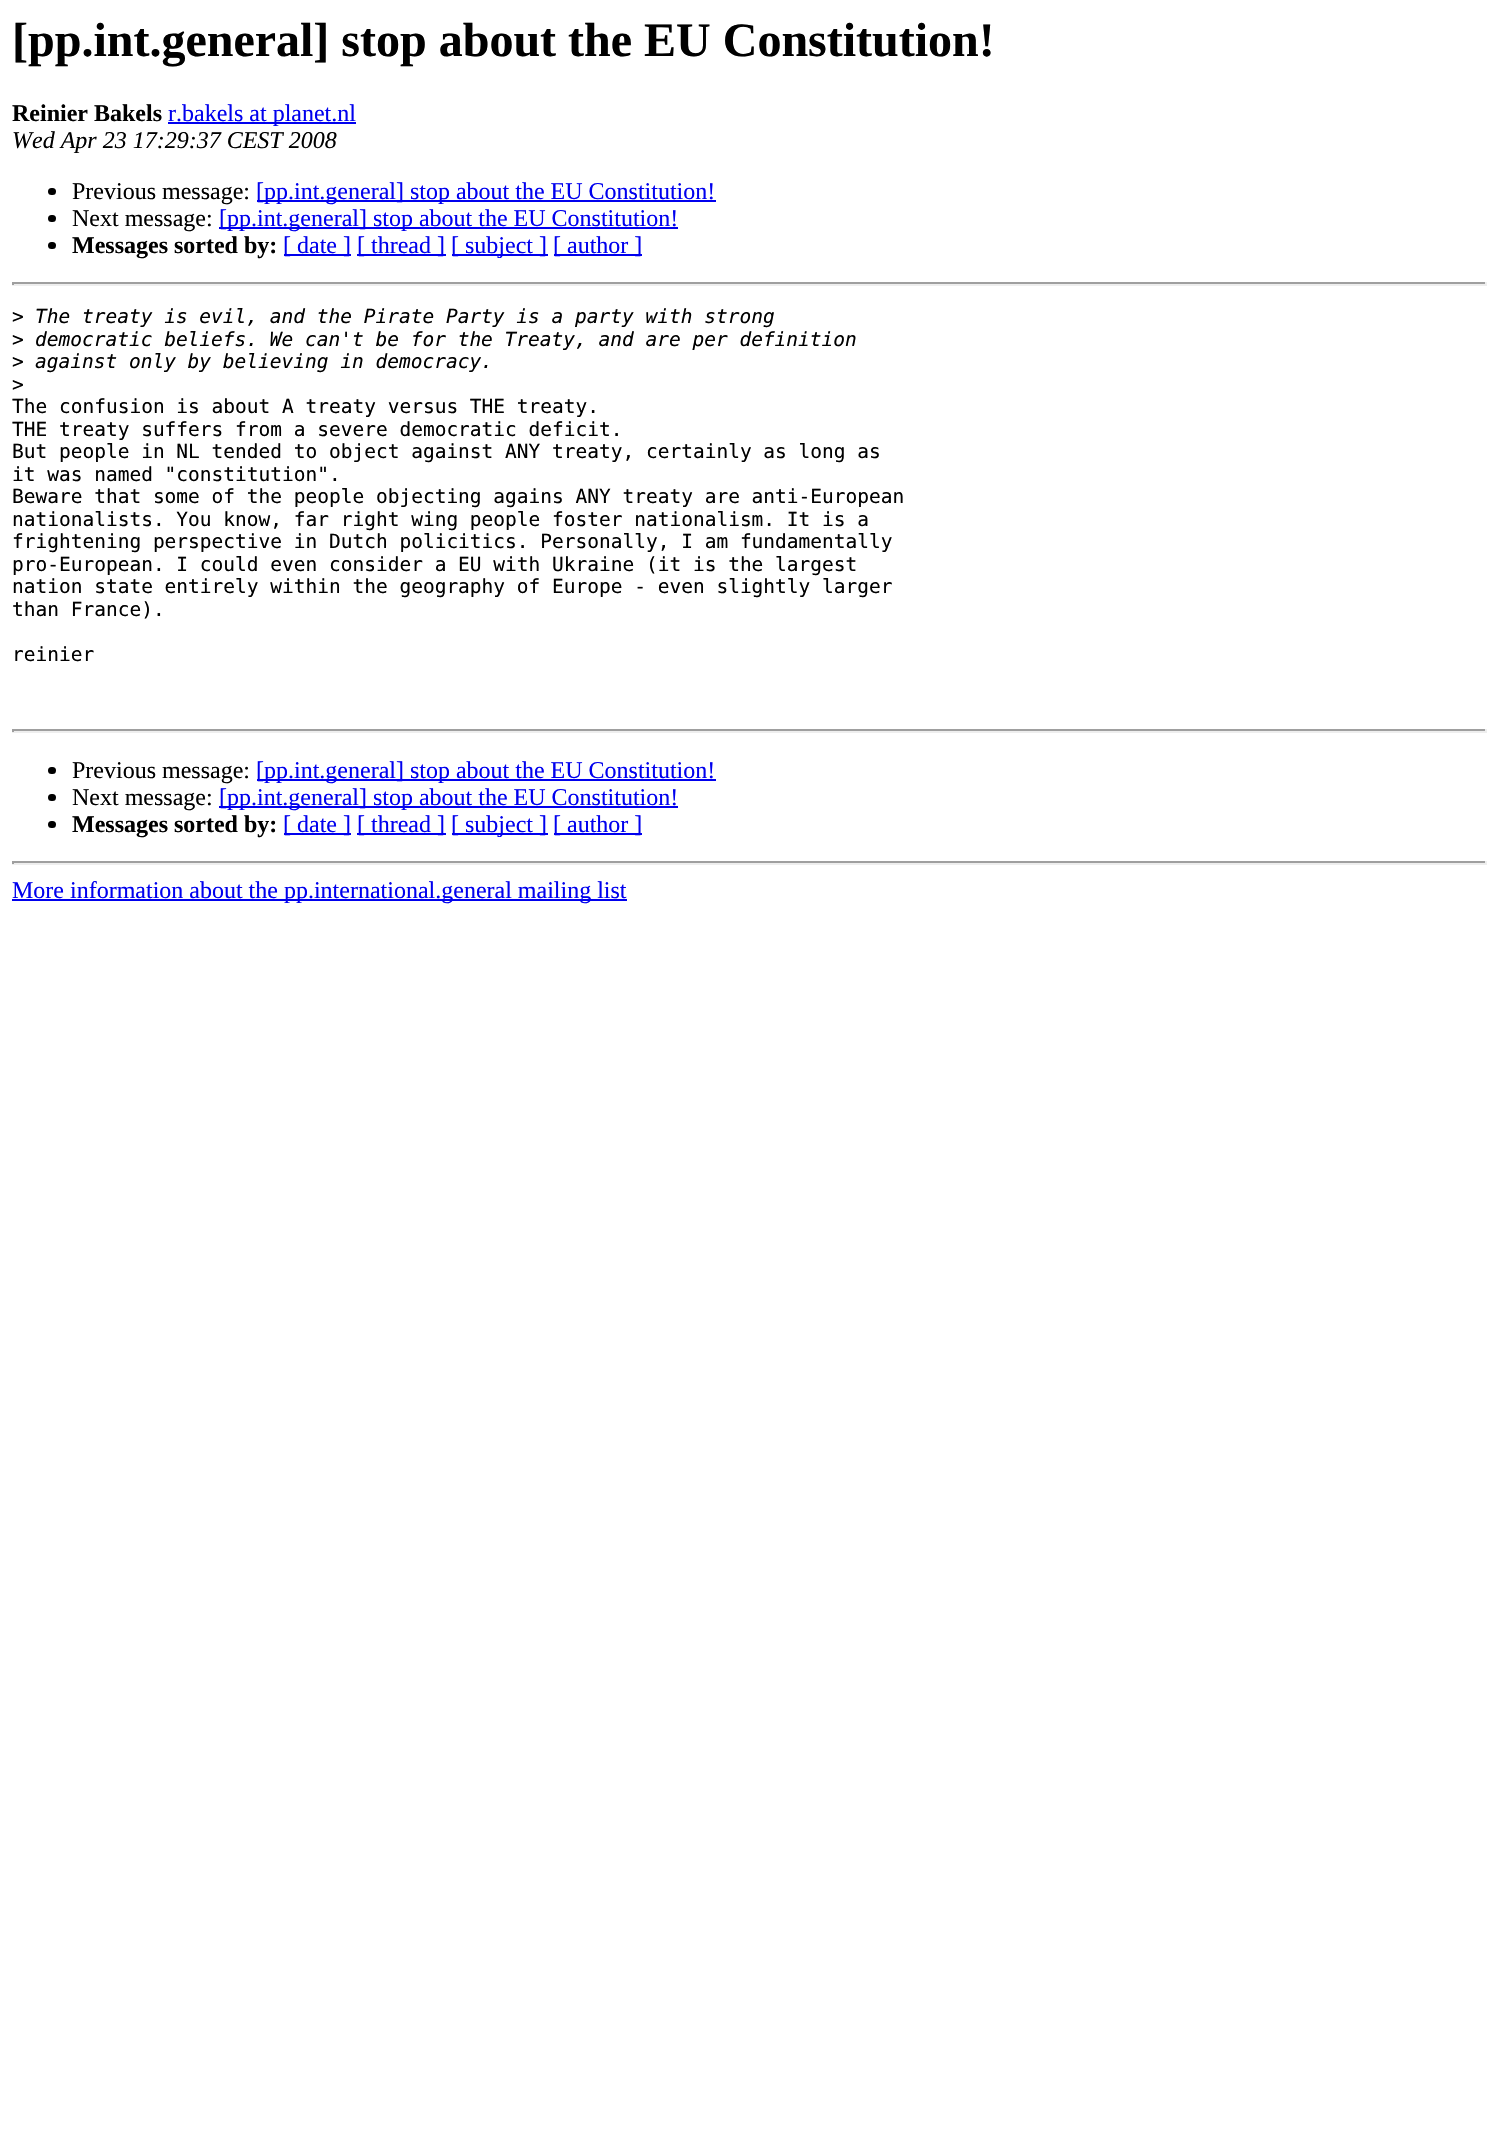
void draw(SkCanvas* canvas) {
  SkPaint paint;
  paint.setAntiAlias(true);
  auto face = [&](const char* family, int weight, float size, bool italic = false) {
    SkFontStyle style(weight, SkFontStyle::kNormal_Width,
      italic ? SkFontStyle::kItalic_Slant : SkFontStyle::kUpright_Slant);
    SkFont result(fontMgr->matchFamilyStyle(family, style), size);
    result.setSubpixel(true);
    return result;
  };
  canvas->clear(0xffffffff);
  paint.setColor(0xff0000ee);
  canvas->drawRect(SkRect::MakeXYWH(168, 122, 188, 2), paint);
  paint.setColor(0xff000000);
  canvas->drawRoundRect(SkRect::MakeXYWH(48, 188, 8, 7), 3.5f, 3.5f, paint);
  paint.setColor(0xff0000ee);
  canvas->drawRect(SkRect::MakeXYWH(257, 200, 459, 2), paint);
  paint.setColor(0xff000000);
  canvas->drawRoundRect(SkRect::MakeXYWH(48, 215, 8, 7), 3.5f, 3.5f, paint);
  paint.setColor(0xff0000ee);
  canvas->drawRect(SkRect::MakeXYWH(219, 227, 459, 2), paint);
  paint.setColor(0xff000000);
  canvas->drawRoundRect(SkRect::MakeXYWH(48, 242, 8, 7), 3.5f, 3.5f, paint);
  {
    const struct { float x, y, w, h; SkColor color; } items[] = {
      {284, 254, 67, 2, 0xff0000ee},
      {357, 254, 89, 2, 0xff0000ee},
      {452, 254, 96, 2, 0xff0000ee},
      {554, 254, 88, 2, 0xff0000ee},
      {12, 282, 1475, 2, 0xff9f9f9f},
      {1485, 282, 2, 3, 0xffeeeeee},
      {12, 284, 1475, 2, 0xffeeeeee},
      {12, 282, 2, 3, 0xff9f9f9f},
      {12, 729, 1475, 2, 0xff9f9f9f},
      {1485, 729, 2, 3, 0xffeeeeee},
      {12, 731, 1475, 2, 0xffeeeeee},
      {12, 729, 2, 3, 0xff9f9f9f},
    };
    for (auto [x, y, w, h, color] : items) {
      paint.setColor(color);
      canvas->drawRect(SkRect::MakeXYWH(x, y, w, h), paint);
    }
  }
  paint.setColor(0xff000000);
  canvas->drawRoundRect(SkRect::MakeXYWH(48, 767, 8, 7), 3.5f, 3.5f, paint);
  paint.setColor(0xff0000ee);
  canvas->drawRect(SkRect::MakeXYWH(257, 779, 459, 2), paint);
  paint.setColor(0xff000000);
  canvas->drawRoundRect(SkRect::MakeXYWH(48, 794, 8, 7), 3.5f, 3.5f, paint);
  paint.setColor(0xff0000ee);
  canvas->drawRect(SkRect::MakeXYWH(219, 806, 459, 2), paint);
  paint.setColor(0xff000000);
  canvas->drawRoundRect(SkRect::MakeXYWH(48, 821, 8, 7), 3.5f, 3.5f, paint);
  {
    const struct { float x, y, w, h; SkColor color; } items[] = {
      {284, 833, 67, 2, 0xff0000ee},
      {357, 833, 89, 2, 0xff0000ee},
      {452, 833, 96, 2, 0xff0000ee},
      {554, 833, 88, 2, 0xff0000ee},
      {12, 861, 1475, 2, 0xff9f9f9f},
      {1485, 861, 2, 3, 0xffeeeeee},
      {12, 863, 1475, 2, 0xffeeeeee},
      {12, 861, 2, 3, 0xff9f9f9f},
      {12, 899, 615, 2, 0xff0000ee},
    };
    for (auto [x, y, w, h, color] : items) {
      paint.setColor(color);
      canvas->drawRect(SkRect::MakeXYWH(x, y, w, h), paint);
    }
  }
  auto f0 = face("Liberation Serif", 700, 48);
  paint.setColor(0xff000000);
  canvas->drawString("[pp.int.general] stop about the EU Constitution!", 12, 56, f0, paint);
  auto f1 = face("Liberation Serif", 700, 24);
  canvas->drawString("Reinier Bakels", 12, 121, f1, paint);
  auto f2 = face("Liberation Serif", 400, 24);
  paint.setColor(0xff0000ee);
  canvas->drawString("r.bakels at planet.nl", 168, 121, f2, paint);
  auto f3 = face("Liberation Serif", 400, 24, true);
  paint.setColor(0xff000000);
  canvas->drawString("Wed Apr 23 17:29:37 CEST 2008", 12, 148, f3, paint);
  canvas->drawString("Previous message:", 72, 199, f2, paint);
  paint.setColor(0xff0000ee);
  canvas->drawString("[pp.int.general] stop about the EU Constitution!", 256, 199, f2, paint);
  paint.setColor(0xff000000);
  canvas->drawString("Next message:", 72, 226, f2, paint);
  paint.setColor(0xff0000ee);
  canvas->drawString("[pp.int.general] stop about the EU Constitution!", 219, 226, f2, paint);
  paint.setColor(0xff000000);
  canvas->drawString("Messages sorted by:", 72, 253, f1, paint);
  paint.setColor(0xff0000ee);
  {
    const struct { const char* s; float x, y; } items[] = {
      {"[ date ]", 283, 253},
      {"[ thread ]", 357, 253},
      {"[ subject ]", 451, 253},
      {"[ author ]", 553, 253},
    };
    for (auto [s, x, y] : items) {
      canvas->drawString(s, x, y, f2, paint);
    }
  }
  auto f4 = face("DejaVu Sans Mono", 400, 19.5f);
  paint.setColor(0xff000000);
  canvas->drawString(">", 12, 323, f4, paint);
  auto f5 = face("DejaVu Sans Mono", 400, 19.5f, true);
  canvas->drawString("The treaty is evil, and the Pirate Party is a party with strong", 35, 323, f5, paint);
  canvas->drawString(">", 12, 346, f4, paint);
  canvas->drawString("democratic beliefs. We can't be for the Treaty, and are per definition", 35, 346, f5, paint);
  canvas->drawString(">", 12, 368, f4, paint);
  canvas->drawString("against only by believing in democracy.", 35, 368, f5, paint);
  {
    const struct { const char* s; float x, y; } items[] = {
      {">", 12, 391},
      {"The confusion is about A treaty versus THE treaty.", 12, 413},
      {"THE treaty suffers from a severe democratic deficit.", 12, 436},
      {"But people in NL tended to object against ANY treaty, certainly as long as", 12, 458},
      {"it was named \"constitution\".", 12, 481},
      {"Beware that some of the people objecting agains ANY treaty are anti-European", 12, 503},
      {"nationalists. You know, far right wing people foster nationalism. It is a", 12, 526},
      {"frightening perspective in Dutch policitics. Personally, I am fundamentally", 12, 548},
      {"pro-European. I could even consider a EU with Ukraine (it is the largest", 12, 571},
      {"nation state entirely within the geography of Europe - even slightly larger", 12, 593},
      {"than France).", 12, 616},
      {"reinier", 12, 661},
    };
    for (auto [s, x, y] : items) {
      canvas->drawString(s, x, y, f4, paint);
    }
  }
  canvas->drawString("Previous message:", 72, 778, f2, paint);
  paint.setColor(0xff0000ee);
  canvas->drawString("[pp.int.general] stop about the EU Constitution!", 256, 778, f2, paint);
  paint.setColor(0xff000000);
  canvas->drawString("Next message:", 72, 805, f2, paint);
  paint.setColor(0xff0000ee);
  canvas->drawString("[pp.int.general] stop about the EU Constitution!", 219, 805, f2, paint);
  paint.setColor(0xff000000);
  canvas->drawString("Messages sorted by:", 72, 832, f1, paint);
  paint.setColor(0xff0000ee);
  {
    const struct { const char* s; float x, y; } items[] = {
      {"[ date ]", 283, 832},
      {"[ thread ]", 357, 832},
      {"[ subject ]", 451, 832},
      {"[ author ]", 553, 832},
      {"More information about the pp.international.general mailing list", 12, 898},
    };
    for (auto [s, x, y] : items) {
      canvas->drawString(s, x, y, f2, paint);
    }
  }
}
